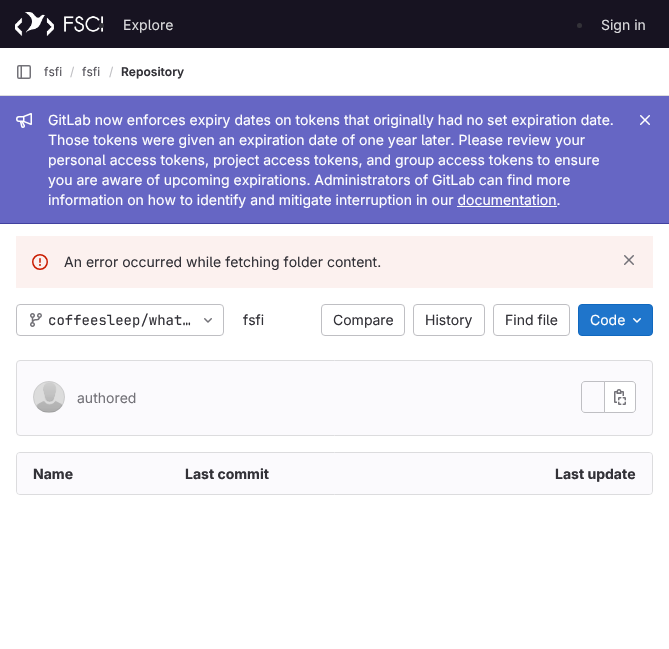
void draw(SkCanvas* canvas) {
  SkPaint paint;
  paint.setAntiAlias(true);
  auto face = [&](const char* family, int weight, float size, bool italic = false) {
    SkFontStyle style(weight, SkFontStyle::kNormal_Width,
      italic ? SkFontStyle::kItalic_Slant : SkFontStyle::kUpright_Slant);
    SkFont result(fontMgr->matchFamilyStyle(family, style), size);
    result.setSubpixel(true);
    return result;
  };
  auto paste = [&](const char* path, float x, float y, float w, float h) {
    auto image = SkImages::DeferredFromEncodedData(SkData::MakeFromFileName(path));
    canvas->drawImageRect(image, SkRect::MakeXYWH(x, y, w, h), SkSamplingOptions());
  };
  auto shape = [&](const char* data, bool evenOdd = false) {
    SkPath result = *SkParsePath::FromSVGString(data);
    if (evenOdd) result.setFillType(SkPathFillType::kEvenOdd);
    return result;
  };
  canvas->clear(0xffffffff);
  paint.setColor(0xff171321);
  canvas->drawRect(SkRect::MakeXYWH(0, 0, 669, 48), paint);
  paste("img/1.png", 15, 12, 88, 24);
  paint.setColor(0xff333238);
  canvas->drawCircle(101.5f, 25.5f, 2.5f, paint);
  canvas->drawCircle(579.5f, 25.5f, 2.5f, paint);
  paint.setColor(0xffdcdcde);
  canvas->drawRect(SkRect::MakeXYWH(0, 95, 669, 1), paint);
  paste("img/2.png", 17, 65, 14, 14);
  paint.setColor(0xff6666c4);
  canvas->drawRect(SkRect::MakeXYWH(0, 96, 669, 127), paint);
  paint.setColor(0xff41419f);
  canvas->drawRect(SkRect::MakeXYWH(0, 223, 669, 1), paint);
  paste("img/3.png", 16, 113, 16, 15);
  paint.setColor(0xffffffff);
  canvas->drawRect(SkRect::MakeXYWH(457, 206, 100, 1), paint);
  paste("img/4.png", 640, 115, 10, 10);
  paint.setColor(0xfffcf1ef);
  canvas->drawRect(SkRect::MakeXYWH(16, 236, 637, 52), paint);
  paste("img/5.png", 32, 254, 16, 16);
  paste("img/6.png", 624, 255, 10, 10);
  paint.setStroke(true);
  paint.setStrokeWidth(1);
  paint.setColor(0xffbfbfc3);
  canvas->drawRoundRect(SkRect::MakeXYWH(16.5f, 304.5f, 207, 31), 3.5f, 3.5f, paint);
  paste("img/7.png", 30, 313, 12, 14);
  paste("img/8.png", 204, 318, 8, 5);
  canvas->drawRoundRect(SkRect::MakeXYWH(321.5f, 304.5f, 83, 31), 3.5f, 3.5f, paint);
  canvas->drawRoundRect(SkRect::MakeXYWH(413.5f, 304.5f, 71, 31), 3.5f, 3.5f, paint);
  canvas->drawRoundRect(SkRect::MakeXYWH(493.5f, 304.5f, 76, 31), 3.5f, 3.5f, paint);
  paint.setStroke(false);
  paint.setColor(0xff1f75cb);
  canvas->drawRoundRect(SkRect::MakeXYWH(578.5f, 304.5f, 74, 31), 3.5f, 3.5f, paint);
  paint.setStroke(true);
  paint.setColor(0xff1068bf);
  canvas->drawRoundRect(SkRect::MakeXYWH(578.5f, 304.5f, 74, 31), 3.5f, 3.5f, paint);
  paste("img/9.png", 633, 318, 8, 5);
  paint.setStroke(false);
  paint.setColor(0xfffbfafd);
  canvas->drawRoundRect(SkRect::MakeXYWH(16.5f, 360.5f, 636, 75), 3.5f, 3.5f, paint);
  paint.setStroke(true);
  paint.setColor(0xffdcdcde);
  canvas->drawRoundRect(SkRect::MakeXYWH(16.5f, 360.5f, 636, 75), 3.5f, 3.5f, paint);
  paste("img/10.png", 33, 381, 32, 32);
  paint.setColor(0x141f1e24);
  canvas->drawCircle(49, 397, 15.5f, paint);
  paint.setColor(0xffbfbfc3);
  canvas->drawPath(shape("M585 381.5H604.5V412.5H585C583 412.5 581.5 411 581.5 409V385C581.5 383 583 381.5 585 381.5Z"), paint);
  paint.setStroke(false);
  paint.setColor(0xffffffff);
  canvas->drawPath(shape("M604.5 381.5H632C634 381.5 635.5 383 635.5 385V409C635.5 411 634 412.5 632 412.5H604.5Z"), paint);
  paint.setStroke(true);
  paint.setColor(0xffbfbfc3);
  canvas->drawPath(shape("M604.5 381.5H632C634 381.5 635.5 383 635.5 385V409C635.5 411 634 412.5 632 412.5H604.5Z"), paint);
  paste("img/11.png", 614, 389, 12, 16);
  paint.setColor(0xffdcdcde);
  canvas->drawRoundRect(SkRect::MakeXYWH(16.5f, 452.5f, 636, 42), 3.5f, 3.5f, paint);
  paint.setStroke(false);
  paint.setColor(0xfffbfafd);
  canvas->drawPath(shape("M20 453H169V494H20C18.5 494 17 492.5 17 491V456C17 454.5 18.5 453 20 453Z"), paint);
  canvas->drawRect(SkRect::MakeXYWH(169, 453, 245, 41), paint);
  canvas->drawPath(shape("M414 453H649C650.5 453 652 454.5 652 456V491C652 492.5 650.5 494 649 494H414Z"), paint);
  auto f0 = face("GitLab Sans", 400, 14);
  paint.setColor(0xffdcdcde);
  canvas->drawString("Explore", 123, 30, f0, paint);
  canvas->drawString("Sign in", 601, 30, f0, paint);
  auto f1 = face("GitLab Sans", 400, 12);
  paint.setColor(0xff535158);
  canvas->drawString("fsfi", 44, 76, f1, paint);
  paint.setColor(0xffbfbfc3);
  canvas->drawString("/", 70, 76, f1, paint);
  paint.setColor(0xff535158);
  canvas->drawString("fsfi", 82, 76, f1, paint);
  paint.setColor(0xffbfbfc3);
  canvas->drawString("/", 109, 76, f1, paint);
  auto f2 = face("GitLab Sans", 600, 12);
  paint.setColor(0xff333238);
  canvas->drawString("Repository", 121, 76, f2, paint);
  paint.setColor(0xffffffff);
  {
    const struct { const char* s; float x, y; } items[] = {
      {"GitLab now enforces expiry dates on tokens that originally had no set expiration date.", 48, 125},
      {"Those tokens were given an expiration date of one year later. Please review your", 48, 145},
      {"personal access tokens, project access tokens, and group access tokens to ensure", 48, 165},
      {"you are aware of upcoming expirations. Administrators of GitLab can find more", 48, 185},
      {"information on how to identify and mitigate interruption in our documentation.", 48, 205},
    };
    for (auto [s, x, y] : items) {
      canvas->drawString(s, x, y, f0, paint);
    }
  }
  paint.setColor(0xff333238);
  canvas->drawString("An error occurred while fetching folder content.", 64, 267, f0, paint);
  auto f3 = face("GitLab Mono", 400, 14);
  canvas->drawString("coffeesleep/what…", 48, 325, f3, paint);
  {
    const struct { const char* s; float x, y; } items[] = {
      {"fsfi", 243, 325},
      {"Compare", 333, 325},
      {"History", 425, 325},
      {"Find file", 505, 325},
    };
    for (auto [s, x, y] : items) {
      canvas->drawString(s, x, y, f0, paint);
    }
  }
  paint.setColor(0xffffffff);
  canvas->drawString("Code", 590, 325, f0, paint);
  paint.setColor(0xff737278);
  canvas->drawString("authored", 77, 403, f0, paint);
  auto f4 = face("GitLab Sans", 700, 14);
  paint.setColor(0xff333238);
  {
    const struct { const char* s; float x, y; } items[] = {
      {"Name", 33, 479},
      {"Last commit", 185, 479},
      {"Last update", 555, 479},
    };
    for (auto [s, x, y] : items) {
      canvas->drawString(s, x, y, f4, paint);
    }
  }
}
